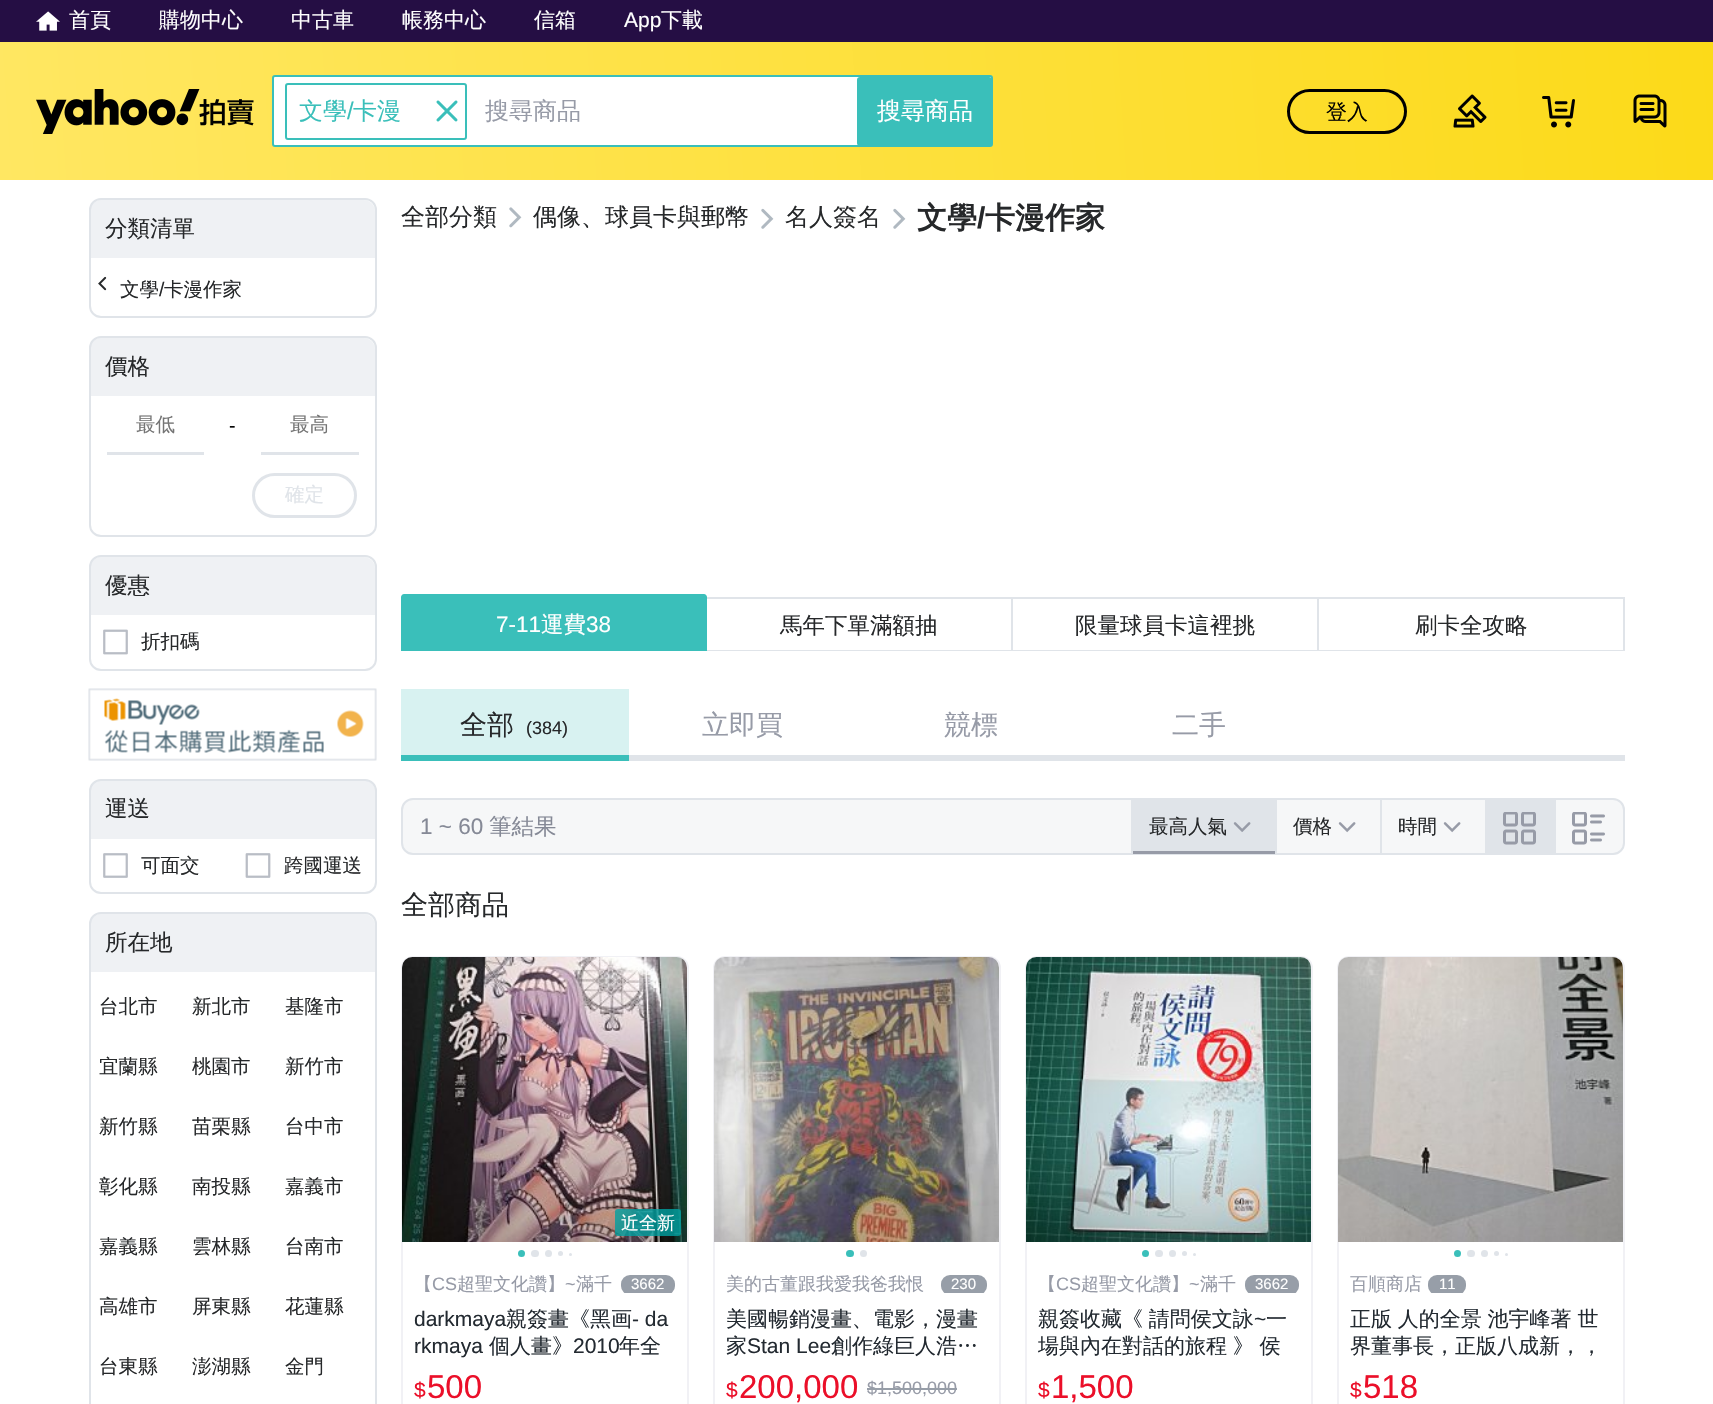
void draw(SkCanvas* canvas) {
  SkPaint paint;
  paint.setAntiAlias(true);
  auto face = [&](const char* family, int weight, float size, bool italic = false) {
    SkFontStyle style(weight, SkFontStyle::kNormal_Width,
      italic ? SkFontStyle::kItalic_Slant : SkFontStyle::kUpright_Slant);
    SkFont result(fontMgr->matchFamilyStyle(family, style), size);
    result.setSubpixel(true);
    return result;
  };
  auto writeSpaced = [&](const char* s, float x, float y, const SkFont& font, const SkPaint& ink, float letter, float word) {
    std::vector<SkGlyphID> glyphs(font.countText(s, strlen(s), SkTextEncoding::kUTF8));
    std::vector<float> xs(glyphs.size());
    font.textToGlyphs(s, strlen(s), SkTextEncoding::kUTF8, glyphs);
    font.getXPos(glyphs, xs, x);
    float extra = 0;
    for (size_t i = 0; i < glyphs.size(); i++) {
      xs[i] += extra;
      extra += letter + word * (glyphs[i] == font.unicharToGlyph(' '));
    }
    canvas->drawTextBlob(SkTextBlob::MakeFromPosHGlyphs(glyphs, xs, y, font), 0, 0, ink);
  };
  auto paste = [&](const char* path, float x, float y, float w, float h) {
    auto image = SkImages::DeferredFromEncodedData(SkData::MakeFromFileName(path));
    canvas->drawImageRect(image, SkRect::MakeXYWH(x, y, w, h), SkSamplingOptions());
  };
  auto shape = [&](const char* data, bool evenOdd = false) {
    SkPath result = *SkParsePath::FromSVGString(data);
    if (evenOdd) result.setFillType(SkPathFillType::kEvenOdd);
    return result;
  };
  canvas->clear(0xffffffff);
  paint.setColor(0xffd8f2f1);
  canvas->drawRect(SkRect::MakeXYWH(401, 689, 228, 66), paint);
  paint.setColor(0xff250e44);
  canvas->drawRect(SkRect::MakeXYWH(0, 0, 1713, 42), paint);
  paste("img/1.png", 36, 11, 24, 20);
  {
    const SkColor colors[] = {0xffffe762, 0xfffcda19};
    const float stops[] = {0, 1};
    const SkPoint ends[] = {{-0.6f, 171}, {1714, 51}};
    paint.setShader(SkGradientShader::MakeLinear(ends, colors, stops, 2, SkTileMode::kClamp));
    paint.setAlpha(255);
  }
  canvas->drawRect(SkRect::MakeXYWH(0, 42, 1713, 138), paint);
  paste("img/2.png", 36, 89, 218, 45);
  paint.setShader(nullptr);
  paint.setColor(0xffffffff);
  canvas->drawRoundRect(SkRect::MakeXYWH(273, 76, 719, 70), 2, 2, paint);
  paint.setStroke(true);
  paint.setStrokeWidth(2);
  paint.setColor(0xff3abfba);
  canvas->drawRoundRect(SkRect::MakeXYWH(273, 76, 719, 70), 2, 2, paint);
  canvas->drawRoundRect(SkRect::MakeXYWH(286, 84, 180, 55), 2, 2, paint);
  paste("img/3.png", 436, 100, 22, 22);
  paint.setStroke(false);
  canvas->drawRoundRect(SkRect::MakeXYWH(857, 77, 135, 69), 3, 3, paint);
  paint.setStroke(true);
  paint.setStrokeWidth(3);
  paint.setColor(0xff000000);
  canvas->drawRoundRect(SkRect::MakeXYWH(1288.5f, 90.5f, 117, 42), 21, 21, paint);
  paste("img/4.png", 1453, 94, 34, 34);
  paste("img/5.png", 1542, 96, 33, 32);
  paste("img/6.png", 1633, 94, 34, 34);
  paint.setStrokeWidth(2);
  paint.setColor(0xffe0e4e9);
  canvas->drawRoundRect(SkRect::MakeXYWH(90, 199, 286, 118), 11, 11, paint);
  paint.setStroke(false);
  paint.setColor(0x80e0e4e9);
  canvas->drawPath(shape("M101 200H364C370 200 375 205 375 211V258H90V211C90 205 95 200 101 200Z"), paint);
  paste("img/7.png", 98, 276, 9, 15);
  paint.setStroke(true);
  paint.setColor(0xffe0e4e9);
  canvas->drawRoundRect(SkRect::MakeXYWH(90, 337, 286, 199), 11, 11, paint);
  paint.setStroke(false);
  paint.setColor(0x80e0e4e9);
  canvas->drawPath(shape("M101 338H364C370 338 375 343 375 349V396H90V349C90 343 95 338 101 338Z"), paint);
  paint.setColor(0xffe0e4e9);
  canvas->drawRect(SkRect::MakeXYWH(107, 452, 97, 3), paint);
  canvas->drawRect(SkRect::MakeXYWH(261, 452, 98, 3), paint);
  paint.setStroke(true);
  paint.setStrokeWidth(3);
  canvas->drawRoundRect(SkRect::MakeXYWH(253.5f, 474.5f, 102, 42), 21, 21, paint);
  paint.setStrokeWidth(2);
  canvas->drawRoundRect(SkRect::MakeXYWH(90, 556, 286, 114), 11, 11, paint);
  paint.setStroke(false);
  paint.setColor(0x80e0e4e9);
  canvas->drawPath(shape("M101 557H364C370 557 375 562 375 568V615H90V568C90 562 95 557 101 557Z"), paint);
  paste("img/8.png", 103, 629, 25, 26);
  paste("img/9.png", 88, 688, 289, 73);
  paint.setStroke(true);
  paint.setColor(0xffe0e4e9);
  canvas->drawRoundRect(SkRect::MakeXYWH(90, 780, 286, 113), 11, 11, paint);
  paint.setStroke(false);
  paint.setColor(0x80e0e4e9);
  canvas->drawPath(shape("M101 780H364C370 780 375 785 375 791V839H90V791C90 785 95 780 101 780Z"), paint);
  paste("img/10.png", 103, 853, 25, 25);
  paste("img/11.png", 245, 853, 26, 25);
  paint.setStroke(true);
  paint.setColor(0xffe0e4e9);
  canvas->drawRoundRect(SkRect::MakeXYWH(90, 913, 286, 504), 11, 11, paint);
  paint.setStroke(false);
  paint.setColor(0x80e0e4e9);
  canvas->drawPath(shape("M101 914H364C370 914 375 919 375 925V972H90V925C90 919 95 914 101 914Z"), paint);
  paste("img/12.png", 509, 207, 13, 21);
  paste("img/13.png", 761, 208, 13, 21);
  paste("img/13.png", 893, 208, 13, 21);
  paint.setColor(0xff3abfba);
  canvas->drawPath(shape("M404 594H704C705.5 594 707 595.5 707 597V651H401V597C401 595.5 402.5 594 404 594Z"), paint);
  {
    const struct { float x, y, w, h; SkColor color; } items[] = {
      {707, 597, 918, 2, 0xffe0e4e9},
      {1011, 597, 2, 54, 0xffe0e4e9},
      {707, 650, 306, 1, 0xffe0e4e9},
      {1317, 597, 2, 54, 0xffe0e4e9},
      {1013, 650, 306, 1, 0xffe0e4e9},
      {1623, 597, 2, 54, 0xffe0e4e9},
      {1319, 650, 306, 1, 0xffe0e4e9},
      {629, 755, 996, 6, 0xffe0e4e9},
      {401, 755, 228, 6, 0xff3abfba},
    };
    for (auto [x, y, w, h, color] : items) {
      paint.setColor(color);
      canvas->drawRect(SkRect::MakeXYWH(x, y, w, h), paint);
    }
  }
  paint.setColor(0xfff6f7f8);
  canvas->drawRoundRect(SkRect::MakeXYWH(402, 799, 1222, 55), 11, 11, paint);
  paint.setStroke(true);
  paint.setColor(0xffe0e4e9);
  canvas->drawRoundRect(SkRect::MakeXYWH(402, 799, 1222, 55), 11, 11, paint);
  paint.setStroke(false);
  {
    const struct { float x, y, w, h; SkColor color; } items[] = {
      {1133, 800, 142, 51, 0xffe0e4e9},
      {1131, 851, 144, 3, 0xff979ba7},
      {1131, 800, 2, 54, 0xffe0e4e9},
    };
    for (auto [x, y, w, h, color] : items) {
      paint.setColor(color);
      canvas->drawRect(SkRect::MakeXYWH(x, y, w, h), paint);
    }
  }
  paste("img/14.png", 1233, 822, 18, 10);
  canvas->drawRect(SkRect::MakeXYWH(1275, 800, 2, 54), paint);
  paste("img/15.png", 1338, 822, 18, 11);
  canvas->drawRect(SkRect::MakeXYWH(1380, 800, 2, 54), paint);
  paste("img/15.png", 1443, 822, 18, 11);
  canvas->drawRect(SkRect::MakeXYWH(1485, 800, 69, 53), paint);
  paste("img/16.png", 1503, 812, 33, 33);
  canvas->drawRect(SkRect::MakeXYWH(1554, 800, 2, 54), paint);
  paste("img/17.png", 1572, 812, 33, 33);
  paint.setStroke(true);
  paint.setColor(0xfff1f1f5);
  canvas->drawRoundRect(SkRect::MakeXYWH(402, 957, 286, 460), 11, 11, paint);
  paste("img/18.png", 402, 957, 285, 285);
  paint.setStroke(false);
  paint.setColor(0xff3abfba);
  canvas->drawCircle(521.5f, 1253.5f, 3.5f, paint);
  paint.setColor(0xffe0e4e9);
  canvas->drawRoundRect(SkRect::MakeXYWH(531, 1250, 8, 7), 3.5f, 3.5f, paint);
  canvas->drawCircle(548.5f, 1253.5f, 3.5f, paint);
  canvas->drawCircle(560.5f, 1253.5f, 2.5f, paint);
  canvas->drawCircle(570.5f, 1254.5f, 1.5f, paint);
  paint.setColor(0xcc00a0a0);
  canvas->drawRoundRect(SkRect::MakeXYWH(615, 1209, 66, 27), 3, 3, paint);
  canvas->save();
  canvas->clipRect(SkRect::MakeXYWH(414, 1275, 261, 18));
  paint.setColor(0xff979ea8);
  canvas->drawRoundRect(SkRect::MakeXYWH(621, 1275, 54, 20), 9, 9, paint);
  canvas->restore();
  paint.setStroke(true);
  paint.setColor(0xfff1f1f5);
  canvas->drawRoundRect(SkRect::MakeXYWH(714, 957, 286, 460), 11, 11, paint);
  paste("img/19.png", 714, 957, 285, 285);
  paint.setStroke(false);
  paint.setColor(0xff3abfba);
  canvas->drawRoundRect(SkRect::MakeXYWH(846, 1250, 8, 7), 3.5f, 3.5f, paint);
  paint.setColor(0xffe0e4e9);
  canvas->drawCircle(863.5f, 1253.5f, 3.5f, paint);
  canvas->save();
  canvas->clipRect(SkRect::MakeXYWH(726, 1275, 261, 18));
  paint.setColor(0xff979ea8);
  canvas->drawRoundRect(SkRect::MakeXYWH(941, 1275, 46, 20), 9, 9, paint);
  canvas->restore();
  paint.setStroke(true);
  paint.setColor(0xfff1f1f5);
  canvas->drawRoundRect(SkRect::MakeXYWH(1026, 957, 286, 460), 11, 11, paint);
  paste("img/20.png", 1026, 957, 285, 285);
  paint.setStroke(false);
  paint.setColor(0xff3abfba);
  canvas->drawCircle(1145.5f, 1253.5f, 3.5f, paint);
  paint.setColor(0xffe0e4e9);
  canvas->drawRoundRect(SkRect::MakeXYWH(1155, 1250, 8, 7), 3.5f, 3.5f, paint);
  canvas->drawCircle(1172.5f, 1253.5f, 3.5f, paint);
  canvas->drawCircle(1184.5f, 1253.5f, 2.5f, paint);
  canvas->drawCircle(1194.5f, 1254.5f, 1.5f, paint);
  canvas->save();
  canvas->clipRect(SkRect::MakeXYWH(1038, 1275, 261, 18));
  paint.setColor(0xff979ea8);
  canvas->drawRoundRect(SkRect::MakeXYWH(1245, 1275, 54, 20), 9, 9, paint);
  canvas->restore();
  paint.setStroke(true);
  paint.setColor(0xfff1f1f5);
  canvas->drawRoundRect(SkRect::MakeXYWH(1338, 957, 286, 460), 11, 11, paint);
  paste("img/21.png", 1338, 957, 285, 285);
  paint.setStroke(false);
  paint.setColor(0xff3abfba);
  canvas->drawCircle(1457.5f, 1253.5f, 3.5f, paint);
  paint.setColor(0xffe0e4e9);
  canvas->drawRoundRect(SkRect::MakeXYWH(1467, 1250, 8, 7), 3.5f, 3.5f, paint);
  canvas->drawCircle(1484.5f, 1253.5f, 3.5f, paint);
  canvas->drawCircle(1496.5f, 1253.5f, 2.5f, paint);
  canvas->drawCircle(1506.5f, 1254.5f, 1.5f, paint);
  canvas->save();
  canvas->clipRect(SkRect::MakeXYWH(1350, 1275, 261, 18));
  paint.setColor(0xff979ea8);
  canvas->drawRoundRect(SkRect::MakeXYWH(1428, 1275, 38, 20), 9, 9, paint);
  canvas->restore();
  auto f0 = face("WenQuanYi Zen Hei", 500, 21);
  paint.setColor(0xffffffff);
  {
    const struct { const char* s; float x, y; } items[] = {
      {"首頁", 69, 27},
      {"購物中心", 159, 27},
      {"中古車", 291, 27},
      {"帳務中心", 402, 27},
      {"信箱", 534, 27},
    };
    for (auto [s, x, y] : items) {
      canvas->drawString(s, x, y, f0, paint);
    }
  }
  auto f1 = face("Liberation Sans", 400, 21);
  canvas->drawString("App", 624, 27, f1, paint);
  canvas->drawString("下載", 661, 27, f0, paint);
  auto f2 = face("WenQuanYi Zen Hei", 500, 24);
  paint.setColor(0xff3abfba);
  canvas->drawString("文學", 299, 119, f2, paint);
  auto f3 = face("Liberation Sans", 400, 24);
  canvas->drawString("/", 347, 119, f3, paint);
  canvas->drawString("卡漫", 353, 119, f2, paint);
  paint.setColor(0xff979ba7);
  canvas->drawString("搜尋商品", 485, 119, f2, paint);
  paint.setColor(0xffffffff);
  canvas->drawString("搜尋商品", 877, 119, f2, paint);
  paint.setColor(0xff000000);
  canvas->drawString("登入", 1326, 119, f0, paint);
  auto f4 = face("WenQuanYi Zen Hei", 500, 22.5f);
  paint.setColor(0xff26282a);
  canvas->drawString("分類清單", 105, 236, f4, paint);
  auto f5 = face("WenQuanYi Zen Hei", 500, 19.5f);
  canvas->drawString("文學", 120, 296, f5, paint);
  auto f6 = face("Liberation Sans", 400, 19.5f);
  canvas->drawString("/", 159, 296, f6, paint);
  canvas->drawString("卡漫作家", 164, 296, f5, paint);
  canvas->drawString("價格", 105, 374, f4, paint);
  paint.setColor(0xff757575);
  canvas->drawString("最低", 136, 431, f5, paint);
  paint.setColor(0xff000000);
  canvas->drawString("-", 229, 432, f6, paint);
  paint.setColor(0xff757575);
  canvas->drawString("最高", 290, 431, f5, paint);
  paint.setColor(0xffe0e4e9);
  canvas->drawString("確定", 285, 501, f5, paint);
  paint.setColor(0xff26282a);
  canvas->drawString("優惠", 105, 593, f4, paint);
  canvas->drawString("折扣碼", 141, 648, f5, paint);
  canvas->drawString("運送", 105, 816, f4, paint);
  canvas->drawString("可面交", 141, 872, f5, paint);
  canvas->drawString("跨國運送", 284, 872, f5, paint);
  canvas->drawString("所在地", 105, 950, f4, paint);
  {
    const struct { const char* s; float x, y; } items[] = {
      {"台北市", 99, 1013},
      {"新北市", 192, 1013},
      {"基隆市", 285, 1013},
      {"宜蘭縣", 99, 1073},
      {"桃園市", 192, 1073},
      {"新竹市", 285, 1073},
      {"新竹縣", 99, 1133},
      {"苗栗縣", 192, 1133},
      {"台中市", 285, 1133},
      {"彰化縣", 99, 1193},
      {"南投縣", 192, 1193},
      {"嘉義市", 285, 1193},
      {"嘉義縣", 99, 1253},
      {"雲林縣", 192, 1253},
      {"台南市", 285, 1253},
      {"高雄市", 99, 1313},
      {"屏東縣", 192, 1313},
      {"花蓮縣", 285, 1313},
      {"台東縣", 99, 1373},
      {"澎湖縣", 192, 1373},
      {"金門", 285, 1373},
    };
    for (auto [s, x, y] : items) {
      canvas->drawString(s, x, y, f5, paint);
    }
  }
  {
    const struct { const char* s; float x, y; } items[] = {
      {"全部分類", 401, 225},
      {"偶像、球員卡與郵幣", 533, 225},
      {"名人簽名", 785, 225},
    };
    for (auto [s, x, y] : items) {
      canvas->drawString(s, x, y, f2, paint);
    }
  }
  auto f7 = face("WenQuanYi Zen Hei", 700, 30);
  canvas->drawString("文學", 917, 228, f7, paint);
  auto f8 = face("Liberation Sans", 700, 30);
  canvas->drawString("/", 977, 228, f8, paint);
  canvas->drawString("卡漫作家", 985, 228, f7, paint);
  auto f9 = face("Liberation Sans", 400, 22.5f);
  paint.setColor(0xffffffff);
  canvas->drawString("7-11", 496, 632, f9, paint);
  canvas->drawString("運費", 541, 632, f4, paint);
  canvas->drawString("38", 586, 632, f9, paint);
  paint.setColor(0xff26282a);
  {
    const struct { const char* s; float x, y; } items[] = {
      {"馬年下單滿額抽", 780, 633},
      {"限量球員卡這裡挑", 1075, 633},
      {"刷卡全攻略", 1415, 633},
    };
    for (auto [s, x, y] : items) {
      canvas->drawString(s, x, y, f4, paint);
    }
  }
  auto f10 = face("WenQuanYi Zen Hei", 500, 27);
  canvas->drawString("全部", 460, 734, f10, paint);
  auto f11 = face("Liberation Sans", 400, 18);
  canvas->drawString("(384)", 526, 734, f11, paint);
  paint.setColor(0xff979ba7);
  {
    const struct { const char* s; float x, y; } items[] = {
      {"立即買", 702, 734},
      {"競標", 944, 734},
      {"二手", 1172, 734},
    };
    for (auto [s, x, y] : items) {
      canvas->drawString(s, x, y, f10, paint);
    }
  }
  paint.setColor(0xff858996);
  canvas->drawString("1 ~ 60", 420, 834, f9, paint);
  canvas->drawString("筆結果", 489, 834, f4, paint);
  paint.setColor(0xff26282a);
  {
    const struct { const char* s; float x, y; } items[] = {
      {"最高人氣", 1149, 833},
      {"價格", 1293, 833},
      {"時間", 1398, 833},
    };
    for (auto [s, x, y] : items) {
      canvas->drawString(s, x, y, f5, paint);
    }
  }
  canvas->drawString("全部商品", 401, 914, f10, paint);
  auto f12 = face("WenQuanYi Zen Hei", 500, 18);
  paint.setColor(0xffffffff);
  canvas->drawString("近全新", 621, 1229, f12, paint);
  paint.setColor(0xff979ba7);
  canvas->drawString("【", 414, 1290, f12, paint);
  canvas->drawString("CS", 432, 1290, f11, paint);
  canvas->drawString("超聖文化讚】", 457, 1290, f12, paint);
  canvas->drawString("~", 565, 1290, f11, paint);
  canvas->drawString("滿千", 576, 1290, f12, paint);
  auto f13 = face("Liberation Sans", 400, 15);
  paint.setColor(0xffffffff);
  canvas->drawString("3662", 631, 1289, f13, paint);
  paint.setColor(0xff232a31);
  canvas->drawString("darkmaya", 414, 1326, f1, paint);
  canvas->drawString("親簽畫《黑画", 506, 1326, f0, paint);
  canvas->drawString("- da", 632, 1326, f1, paint);
  canvas->drawString("rkmaya", 414, 1353, f1, paint);
  canvas->drawString("個人畫》", 489, 1353, f0, paint);
  canvas->drawString("2010", 573, 1353, f1, paint);
  canvas->drawString("年全", 619, 1353, f0, paint);
  paint.setColor(0xffeb0f29);
  canvas->drawString("$", 414, 1397, f1, paint);
  auto f14 = face("Liberation Sans", 400, 33);
  canvas->drawString("500", 427, 1398, f14, paint);
  paint.setColor(0xff979ba7);
  canvas->drawString("美的古董跟我愛我爸我恨", 726, 1290, f12, paint);
  paint.setColor(0xffffffff);
  canvas->drawString("230", 951, 1289, f13, paint);
  paint.setColor(0xff232a31);
  canvas->drawString("美國暢銷漫畫、電影，漫畫", 726, 1326, f0, paint);
  canvas->drawString("家", 726, 1353, f0, paint);
  canvas->drawString("Stan Lee", 747, 1353, f1, paint);
  canvas->drawString("創作綠巨人浩…", 831, 1353, f0, paint);
  paint.setColor(0xffeb0f29);
  canvas->drawString("$", 726, 1397, f1, paint);
  canvas->drawString("200,000", 739, 1398, f14, paint);
  paint.setColor(0xff979ba7);
  canvas->drawString("$1,500,000", 867, 1394, f11, paint);
  paint.setColor(0xff979ea8);
  canvas->drawRect(SkRect::MakeXYWH(867, 1388, 90, 2), paint);
  paint.setColor(0xff979ba7);
  canvas->drawString("【", 1038, 1290, f12, paint);
  canvas->drawString("CS", 1056, 1290, f11, paint);
  canvas->drawString("超聖文化讚】", 1081, 1290, f12, paint);
  canvas->drawString("~", 1189, 1290, f11, paint);
  canvas->drawString("滿千", 1200, 1290, f12, paint);
  paint.setColor(0xffffffff);
  canvas->drawString("3662", 1255, 1289, f13, paint);
  paint.setColor(0xff232a31);
  writeSpaced("親簽收藏《 請問侯文詠", 1038, 1326, f0, paint, 0, -0.5f);
  canvas->drawString("~", 1254, 1326, f1, paint);
  canvas->drawString("一", 1266, 1326, f0, paint);
  writeSpaced("場與內在對話的旅程 》 侯", 1038, 1353, f0, paint, 0, -0.5f);
  paint.setColor(0xffeb0f29);
  canvas->drawString("$", 1038, 1397, f1, paint);
  canvas->drawString("1,500", 1051, 1398, f14, paint);
  paint.setColor(0xff979ba7);
  canvas->drawString("百順商店", 1350, 1290, f12, paint);
  paint.setColor(0xffffffff);
  canvas->drawString("11", 1439, 1289, f13, paint);
  paint.setColor(0xff232a31);
  writeSpaced("正版 人的全景 池宇峰著 世", 1350, 1326, f0, paint, 0, -0.5f);
  canvas->drawString("界董事長，正版八成新，，", 1350, 1353, f0, paint);
  paint.setColor(0xffeb0f29);
  canvas->drawString("$", 1350, 1397, f1, paint);
  canvas->drawString("518", 1363, 1398, f14, paint);
}
